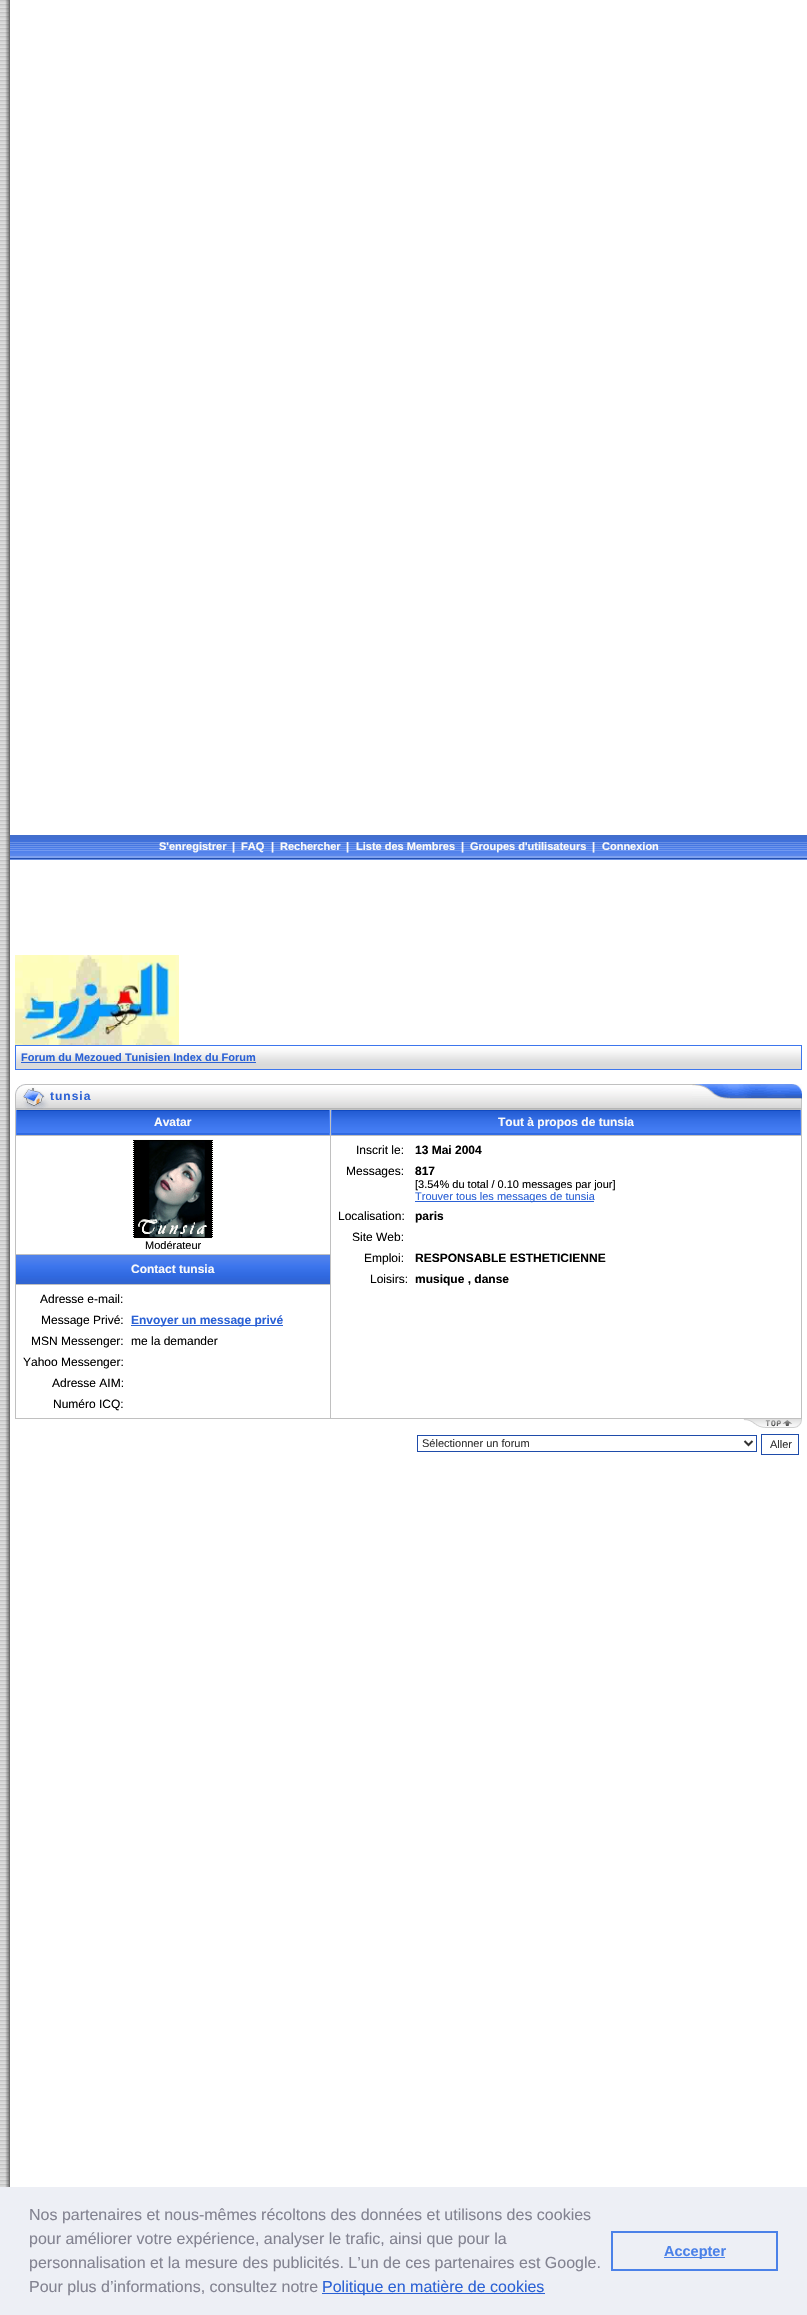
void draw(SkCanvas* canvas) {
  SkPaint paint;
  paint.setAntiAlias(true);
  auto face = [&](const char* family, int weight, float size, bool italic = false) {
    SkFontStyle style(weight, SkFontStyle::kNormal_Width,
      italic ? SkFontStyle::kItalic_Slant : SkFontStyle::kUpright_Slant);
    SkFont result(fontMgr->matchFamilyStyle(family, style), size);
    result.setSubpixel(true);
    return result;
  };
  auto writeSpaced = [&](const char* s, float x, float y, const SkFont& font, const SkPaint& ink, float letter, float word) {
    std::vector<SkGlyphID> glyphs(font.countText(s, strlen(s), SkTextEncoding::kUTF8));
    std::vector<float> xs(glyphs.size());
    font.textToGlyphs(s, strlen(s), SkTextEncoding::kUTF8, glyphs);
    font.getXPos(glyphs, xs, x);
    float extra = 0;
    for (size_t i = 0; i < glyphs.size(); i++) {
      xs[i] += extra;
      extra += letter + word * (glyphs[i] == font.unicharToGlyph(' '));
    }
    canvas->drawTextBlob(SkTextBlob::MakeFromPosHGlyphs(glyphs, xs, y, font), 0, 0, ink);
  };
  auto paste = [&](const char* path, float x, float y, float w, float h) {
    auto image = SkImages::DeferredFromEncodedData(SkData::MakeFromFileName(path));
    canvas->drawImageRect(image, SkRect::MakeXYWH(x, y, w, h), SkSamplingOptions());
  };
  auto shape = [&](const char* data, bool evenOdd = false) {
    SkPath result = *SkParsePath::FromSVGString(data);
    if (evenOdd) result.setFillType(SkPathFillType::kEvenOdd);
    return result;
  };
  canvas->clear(0xffffffff);
  paste("img/1.png", 0, 0, 10, 2187);
  paste("img/2.png", 10, 835, 797, 25);
  paste("img/3.png", 15, 955, 164, 90);
  paste("img/4.png", 16, 1046, 785, 23);
  paint.setStroke(true);
  paint.setStrokeWidth(1);
  paint.setColor(0xff3d76ed);
  canvas->drawRect(SkRect::MakeXYWH(15.5f, 1045.5f, 786, 24), paint);
  paint.setStroke(false);
  paint.setColor(0xff2b61d5);
  canvas->drawRect(SkRect::MakeXYWH(21, 1062, 235, 1), paint);
  paste("img/5.png", 49, 1084, 643, 25);
  paste("img/6.png", 15, 1084, 34, 25);
  paste("img/7.png", 692, 1084, 110, 25);
  paint.setColor(0xffc0c0c0);
  canvas->drawRect(SkRect::MakeXYWH(15, 1109, 787, 310), paint);
  paste("img/8.png", 17, 1110, 312, 25);
  paint.setColor(0xff457ef5);
  canvas->drawRect(SkRect::MakeXYWH(329, 1110, 1, 25), paint);
  canvas->drawRect(SkRect::MakeXYWH(16, 1110, 1, 25), paint);
  paste("img/9.png", 332, 1110, 468, 25);
  {
    const struct { float x, y, w, h; SkColor color; } items[] = {
      {800, 1110, 1, 25, 0xff457ef5},
      {331, 1110, 1, 25, 0xff457ef5},
      {16, 1136, 314, 118, 0xffffffff},
    };
    for (auto [x, y, w, h, color] : items) {
      paint.setColor(color);
      canvas->drawRect(SkRect::MakeXYWH(x, y, w, h), paint);
    }
  }
  paste("img/10.png", 133, 1139, 80, 100);
  canvas->drawRect(SkRect::MakeXYWH(331, 1136, 470, 282), paint);
  paint.setColor(0xff2b61d5);
  canvas->drawRect(SkRect::MakeXYWH(415, 1201, 179, 1), paint);
  paste("img/11.png", 16, 1255, 314, 29);
  paint.setColor(0xffffffff);
  canvas->drawRect(SkRect::MakeXYWH(16, 1285, 314, 133), paint);
  paint.setColor(0xff2b61d5);
  canvas->drawRect(SkRect::MakeXYWH(131, 1325, 152, 1), paint);
  paste("img/12.png", 743, 1419, 59, 9);
  paint.setStroke(true);
  paint.setColor(0xff1f4caa);
  canvas->drawRect(SkRect::MakeXYWH(417.5f, 1435.5f, 339, 16), paint);
  paint.setStrokeWidth(2);
  paint.setColor(0xff333333);
  canvas->drawPath(shape("M744.5 1441L748.5 1445L752.5 1441"), paint);
  paint.setStrokeWidth(1);
  paint.setColor(0xff1f4caa);
  canvas->drawRect(SkRect::MakeXYWH(761.5f, 1434.5f, 37, 20), paint);
  paint.setStroke(false);
  paint.setColor(0xffedeff5);
  canvas->drawRect(SkRect::MakeXYWH(0, 2187, 807, 128), paint);
  paint.setColor(0xff2b61d5);
  canvas->drawRect(SkRect::MakeXYWH(322, 2293, 223, 1), paint);
  paint.setStroke(true);
  paint.setStrokeWidth(2);
  paint.setColor(0xff4b81e8);
  canvas->drawRect(SkRect::MakeXYWH(612, 2232, 165, 38), paint);
  paint.setStroke(false);
  canvas->drawRect(SkRect::MakeXYWH(664, 2257, 61, 1), paint);
  auto f0 = face("Liberation Sans", 700, 11);
  paint.setColor(0xfffafafa);
  {
    const struct { const char* s; float x, y; } items[] = {
      {"S'enregistrer", 159, 850},
      {"|", 232, 850},
      {"FAQ", 241, 850},
      {"|", 271, 850},
      {"Rechercher", 280, 850},
      {"|", 346, 850},
      {"Liste des Membres", 356, 850},
      {"|", 461, 850},
      {"Groupes d'utilisateurs", 470, 850},
      {"|", 592, 850},
      {"Connexion", 602, 850},
    };
    for (auto [s, x, y] : items) {
      canvas->drawString(s, x, y, f0, paint);
    }
  }
  paint.setColor(0xff2b61d5);
  canvas->drawString("Forum du Mezoued Tunisien Index du Forum", 21, 1061, f0, paint);
  auto f1 = face("Liberation Sans", 700, 12);
  writeSpaced("tunsia", 50, 1100, f1, paint, 1, 0);
  paint.setColor(0xfffafafa);
  canvas->drawString("Avatar", 154, 1126, f1, paint);
  canvas->drawString("Tout à propos de tunsia", 498, 1126, f1, paint);
  auto f2 = face("Liberation Sans", 400, 11);
  paint.setColor(0xff000000);
  canvas->drawString("Modérateur", 145, 1249, f2, paint);
  auto f3 = face("Liberation Sans", 400, 12);
  canvas->drawString("Inscrit le:", 356, 1154, f3, paint);
  canvas->drawString("13 Mai 2004", 415, 1154, f1, paint);
  canvas->drawString("Messages:", 346, 1175, f3, paint);
  canvas->drawString("817", 415, 1175, f1, paint);
  canvas->drawString("[3.54% du total / 0.10 messages par jour]", 415, 1188, f2, paint);
  paint.setColor(0xff2b61d5);
  canvas->drawString("Trouver tous les messages de tunsia", 415, 1200, f2, paint);
  paint.setColor(0xff000000);
  canvas->drawString("Localisation:", 338, 1220, f3, paint);
  canvas->drawString("paris", 415, 1220, f1, paint);
  canvas->drawString("Site Web:", 352, 1241, f3, paint);
  canvas->drawString("Emploi:", 364, 1262, f3, paint);
  canvas->drawString("RESPONSABLE ESTHETICIENNE", 415, 1262, f1, paint);
  canvas->drawString("Loisirs:", 370, 1283, f3, paint);
  canvas->drawString("musique , danse", 415, 1283, f1, paint);
  paint.setColor(0xfffafafa);
  canvas->drawString("Contact tunsia", 131, 1273, f1, paint);
  paint.setColor(0xff000000);
  canvas->drawString("Adresse e-mail:", 40, 1303, f3, paint);
  canvas->drawString("Message Privé:", 41, 1324, f3, paint);
  paint.setColor(0xff2b61d5);
  canvas->drawString("Envoyer un message privé", 131, 1324, f1, paint);
  paint.setColor(0xff000000);
  {
    const struct { const char* s; float x, y; } items[] = {
      {"MSN Messenger:", 31, 1345},
      {"me la demander", 131, 1345},
      {"Yahoo Messenger:", 23, 1366},
      {"Adresse AIM:", 52, 1387},
      {"Numéro ICQ:", 53, 1408},
    };
    for (auto [s, x, y] : items) {
      canvas->drawString(s, x, y, f3, paint);
    }
  }
  paint.setColor(0xff333333);
  canvas->drawString("Sélectionner un forum", 422, 1447, f2, paint);
  canvas->drawString("Aller", 770, 1448, f2, paint);
  auto f4 = face("Liberation Sans", 400, 16);
  paint.setColor(0xff838391);
  {
    const struct { const char* s; float x, y; } items[] = {
      {"Nos partenaires et nous-mêmes récoltons des données et utilisons des cookies", 29, 2220},
      {"pour améliorer votre expérience, analyser le trafic, ainsi que pour la", 29, 2244},
      {"personnalisation et la mesure des publicités. L’un de ces partenaires est Google.", 29, 2268},
      {"Pour plus d’informations, consultez notre", 29, 2292},
    };
    for (auto [s, x, y] : items) {
      canvas->drawString(s, x, y, f4, paint);
    }
  }
  paint.setColor(0xff2b61d5);
  canvas->drawString("Politique en matière de cookies", 322, 2292, f4, paint);
  auto f5 = face("Liberation Sans", 700, 14.5f);
  paint.setColor(0xff4b81e8);
  canvas->drawString("Accepter", 664, 2256, f5, paint);
}
